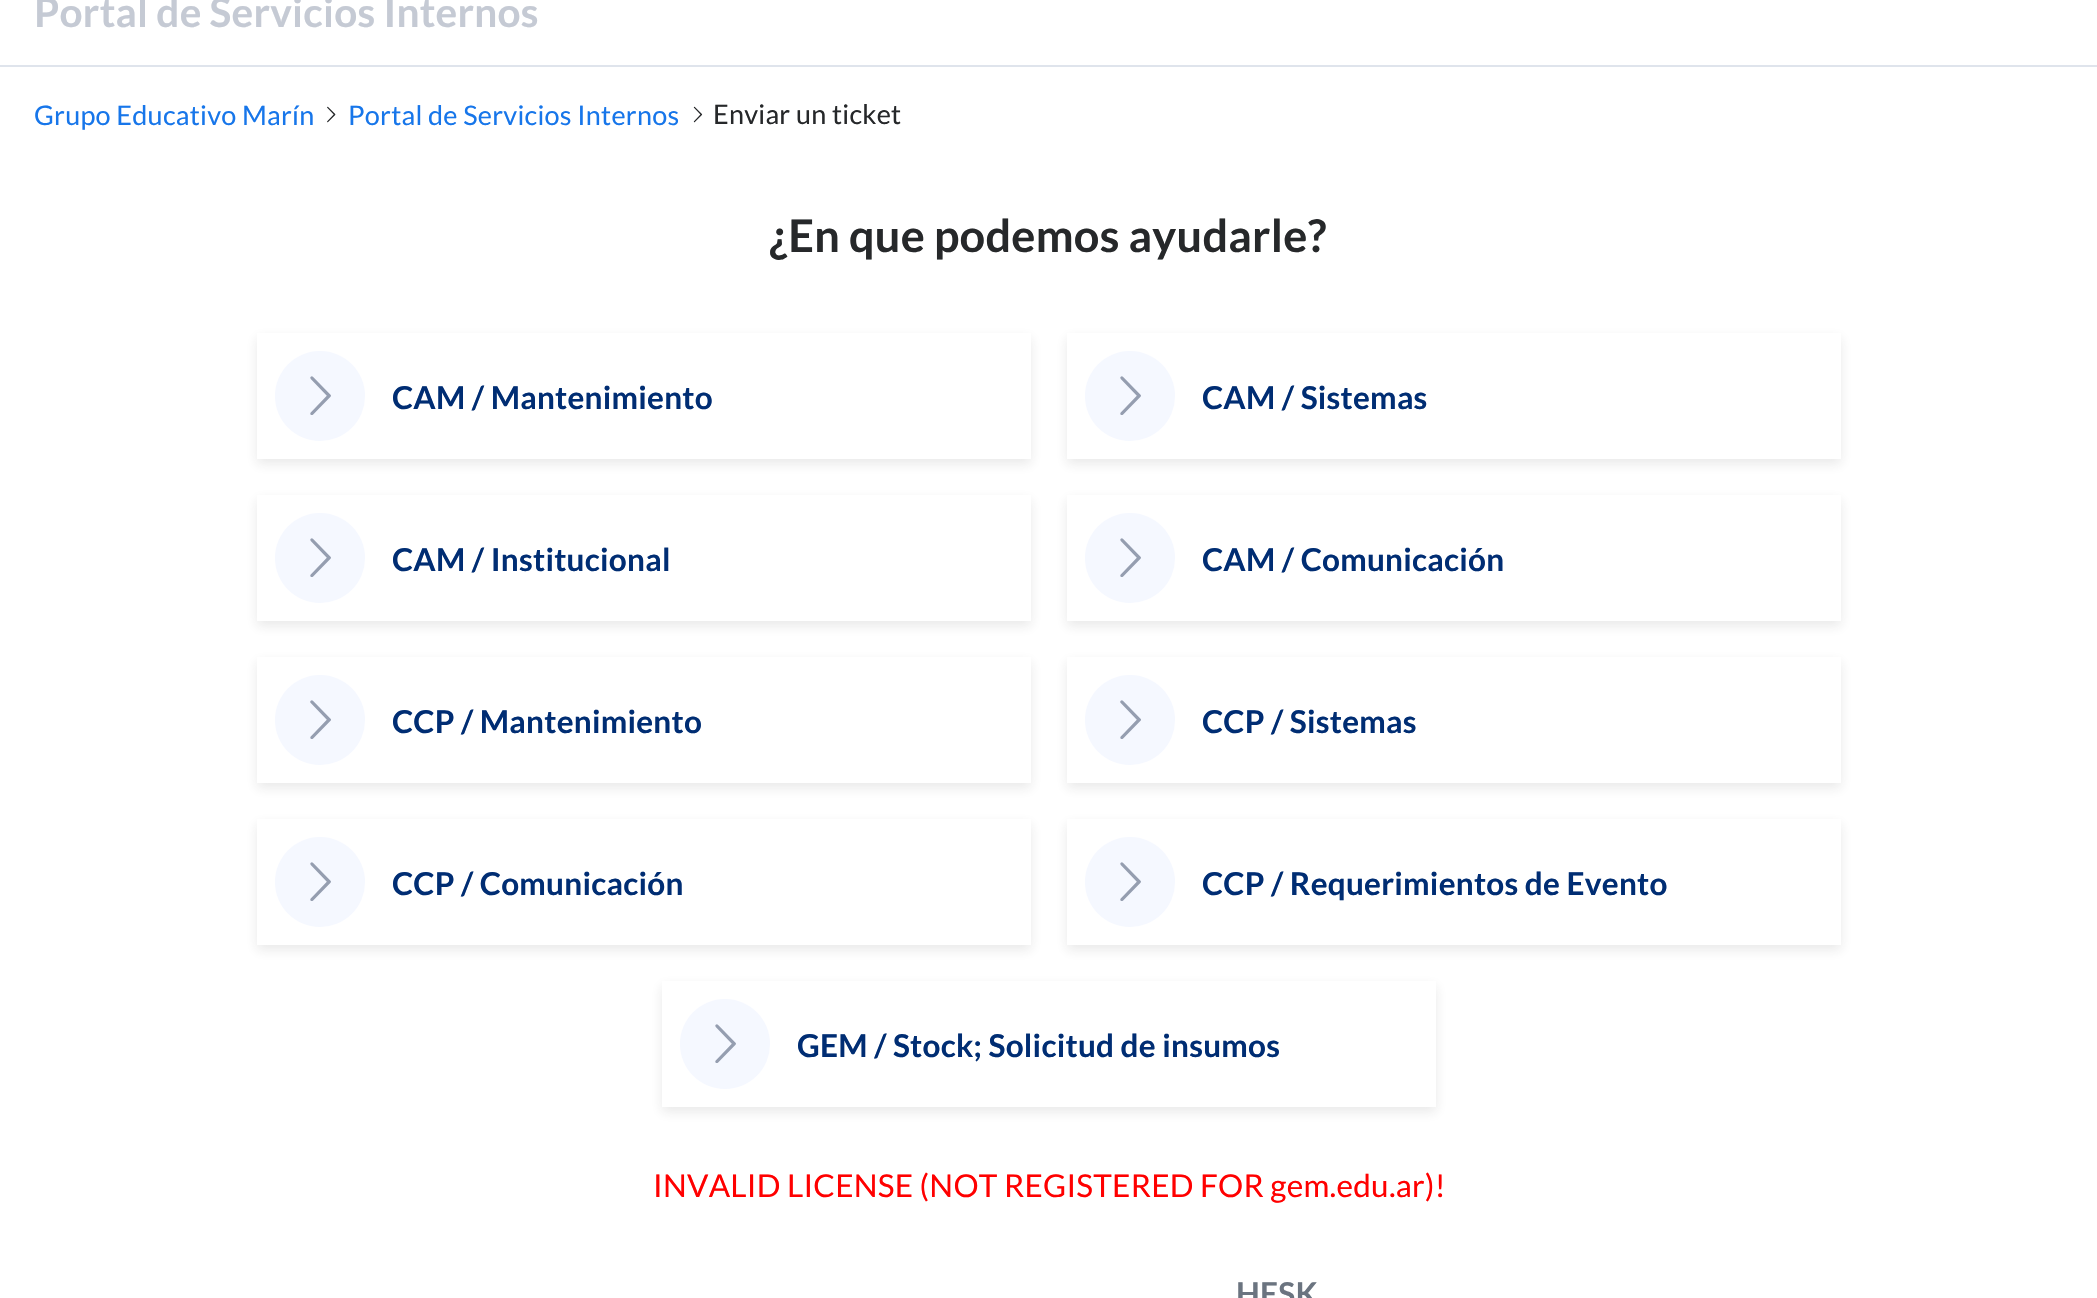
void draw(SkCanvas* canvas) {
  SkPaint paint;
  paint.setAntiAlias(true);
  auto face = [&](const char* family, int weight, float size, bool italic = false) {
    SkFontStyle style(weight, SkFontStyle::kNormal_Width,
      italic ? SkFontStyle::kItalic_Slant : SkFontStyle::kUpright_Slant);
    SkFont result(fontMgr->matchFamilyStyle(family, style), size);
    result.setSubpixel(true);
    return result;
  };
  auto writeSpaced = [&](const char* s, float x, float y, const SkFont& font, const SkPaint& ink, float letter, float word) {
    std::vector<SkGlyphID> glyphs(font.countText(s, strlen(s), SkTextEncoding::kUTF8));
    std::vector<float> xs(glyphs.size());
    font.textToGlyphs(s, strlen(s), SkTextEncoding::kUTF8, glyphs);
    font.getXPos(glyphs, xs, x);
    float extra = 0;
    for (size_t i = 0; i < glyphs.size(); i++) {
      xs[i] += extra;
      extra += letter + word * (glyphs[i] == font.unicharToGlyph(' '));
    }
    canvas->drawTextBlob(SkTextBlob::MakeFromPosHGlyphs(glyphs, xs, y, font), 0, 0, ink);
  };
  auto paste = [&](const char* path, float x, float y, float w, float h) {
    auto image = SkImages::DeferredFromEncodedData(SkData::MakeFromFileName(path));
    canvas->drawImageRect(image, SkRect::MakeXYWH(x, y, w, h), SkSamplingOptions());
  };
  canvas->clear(0xffffffff);
  paint.setColor(0xffdfe4ec);
  canvas->drawRect(SkRect::MakeXYWH(0, 65, 2097, 2), paint);
  paste("img/1.png", 327, 106, 9, 17);
  paste("img/2.png", 693, 106, 10, 17);
  paint.setColor(0x1a26282a);
  paint.setMaskFilter(SkMaskFilter::MakeBlur(kNormal_SkBlurStyle, 5.5f));
  canvas->drawRect(SkRect::MakeXYWH(257, 338, 774, 126), paint);
  paint.setMaskFilter(nullptr);
  paint.setColor(0xffffffff);
  canvas->drawRect(SkRect::MakeXYWH(257, 333, 774, 126), paint);
  paint.setColor(0xfff5f8ff);
  canvas->drawCircle(320, 396, 45, paint);
  paste("img/3.png", 310, 376, 21, 39);
  paint.setColor(0x1a26282a);
  paint.setMaskFilter(SkMaskFilter::MakeBlur(kNormal_SkBlurStyle, 5.5f));
  canvas->drawRect(SkRect::MakeXYWH(1067, 338, 774, 126), paint);
  paint.setMaskFilter(nullptr);
  paint.setColor(0xffffffff);
  canvas->drawRect(SkRect::MakeXYWH(1067, 333, 774, 126), paint);
  paint.setColor(0xfff5f8ff);
  canvas->drawCircle(1130, 396, 45, paint);
  paste("img/3.png", 1120, 376, 21, 39);
  paint.setColor(0x1a26282a);
  paint.setMaskFilter(SkMaskFilter::MakeBlur(kNormal_SkBlurStyle, 5.5f));
  canvas->drawRect(SkRect::MakeXYWH(257, 500, 774, 126), paint);
  paint.setMaskFilter(nullptr);
  paint.setColor(0xffffffff);
  canvas->drawRect(SkRect::MakeXYWH(257, 495, 774, 126), paint);
  paint.setColor(0xfff5f8ff);
  canvas->drawCircle(320, 558, 45, paint);
  paste("img/3.png", 310, 538, 21, 39);
  paint.setColor(0x1a26282a);
  paint.setMaskFilter(SkMaskFilter::MakeBlur(kNormal_SkBlurStyle, 5.5f));
  canvas->drawRect(SkRect::MakeXYWH(1067, 500, 774, 126), paint);
  paint.setMaskFilter(nullptr);
  paint.setColor(0xffffffff);
  canvas->drawRect(SkRect::MakeXYWH(1067, 495, 774, 126), paint);
  paint.setColor(0xfff5f8ff);
  canvas->drawCircle(1130, 558, 45, paint);
  paste("img/3.png", 1120, 538, 21, 39);
  paint.setColor(0x1a26282a);
  paint.setMaskFilter(SkMaskFilter::MakeBlur(kNormal_SkBlurStyle, 5.5f));
  canvas->drawRect(SkRect::MakeXYWH(257, 662, 774, 126), paint);
  paint.setMaskFilter(nullptr);
  paint.setColor(0xffffffff);
  canvas->drawRect(SkRect::MakeXYWH(257, 657, 774, 126), paint);
  paint.setColor(0xfff5f8ff);
  canvas->drawCircle(320, 720, 45, paint);
  paste("img/4.png", 310, 700, 21, 39);
  paint.setColor(0x1a26282a);
  paint.setMaskFilter(SkMaskFilter::MakeBlur(kNormal_SkBlurStyle, 5.5f));
  canvas->drawRect(SkRect::MakeXYWH(1067, 662, 774, 126), paint);
  paint.setMaskFilter(nullptr);
  paint.setColor(0xffffffff);
  canvas->drawRect(SkRect::MakeXYWH(1067, 657, 774, 126), paint);
  paint.setColor(0xfff5f8ff);
  canvas->drawCircle(1130, 720, 45, paint);
  paste("img/4.png", 1120, 700, 21, 39);
  paint.setColor(0x1a26282a);
  paint.setMaskFilter(SkMaskFilter::MakeBlur(kNormal_SkBlurStyle, 5.5f));
  canvas->drawRect(SkRect::MakeXYWH(257, 824, 774, 126), paint);
  paint.setMaskFilter(nullptr);
  paint.setColor(0xffffffff);
  canvas->drawRect(SkRect::MakeXYWH(257, 819, 774, 126), paint);
  paint.setColor(0xfff5f8ff);
  canvas->drawCircle(320, 882, 45, paint);
  paste("img/3.png", 310, 862, 21, 39);
  paint.setColor(0x1a26282a);
  paint.setMaskFilter(SkMaskFilter::MakeBlur(kNormal_SkBlurStyle, 5.5f));
  canvas->drawRect(SkRect::MakeXYWH(1067, 824, 774, 126), paint);
  paint.setMaskFilter(nullptr);
  paint.setColor(0xffffffff);
  canvas->drawRect(SkRect::MakeXYWH(1067, 819, 774, 126), paint);
  paint.setColor(0xfff5f8ff);
  canvas->drawCircle(1130, 882, 45, paint);
  paste("img/3.png", 1120, 862, 21, 39);
  paint.setColor(0x1a26282a);
  paint.setMaskFilter(SkMaskFilter::MakeBlur(kNormal_SkBlurStyle, 5.5f));
  canvas->drawRect(SkRect::MakeXYWH(662, 986, 774, 126), paint);
  paint.setMaskFilter(nullptr);
  paint.setColor(0xffffffff);
  canvas->drawRect(SkRect::MakeXYWH(662, 981, 774, 126), paint);
  paint.setColor(0xfff5f8ff);
  canvas->drawCircle(725, 1044, 45, paint);
  paste("img/3.png", 715, 1024, 21, 39);
  auto f0 = face("Lato", 700, 40.5f);
  paint.setColor(0xffc5cad4);
  writeSpaced("Portal de Servicios Internos", 34, 27, f0, paint, 0.25f, 0);
  auto f1 = face("Lato", 400, 27);
  paint.setColor(0xff1776ea);
  writeSpaced("Grupo Educativo Marín", 34, 125, f1, paint, 0.25f, 0);
  writeSpaced("Portal de Servicios Internos", 348, 125, f1, paint, 0.25f, 0);
  paint.setColor(0xff26282a);
  writeSpaced("Enviar un ticket", 713, 124, f1, paint, 0.25f, 0);
  auto f2 = face("Lato", 700, 45);
  writeSpaced("¿En que podemos ayudarle?", 769, 252, f2, paint, 0.25f, 0);
  auto f3 = face("Lato", 700, 31.5f);
  paint.setColor(0xff002d73);
  {
    const struct { const char* s; float x, y; } items[] = {
      {"CAM / Mantenimiento", 392, 409},
      {"CAM / Sistemas", 1202, 409},
      {"CAM / Institucional", 392, 571},
      {"CAM / Comunicación", 1202, 571},
      {"CCP / Mantenimiento", 392, 733},
      {"CCP / Sistemas", 1202, 733},
      {"CCP / Comunicación", 392, 895},
      {"CCP / Requerimientos de Evento", 1202, 895},
      {"GEM / Stock; Solicitud de insumos", 797, 1057},
    };
    for (auto [s, x, y] : items) {
      writeSpaced(s, x, y, f3, paint, 0.25f, 0);
    }
  }
  auto f4 = face("Lato", 400, 31.5f);
  paint.setColor(0xffff0000);
  writeSpaced("INVALID LICENSE (NOT REGISTERED FOR gem.edu.ar)!", 653, 1197, f4, paint, 0.25f, 0);
  paint.setColor(0xff6b7480);
  writeSpaced("HESK", 1236, 1305, f3, paint, 0.25f, 0);
}
